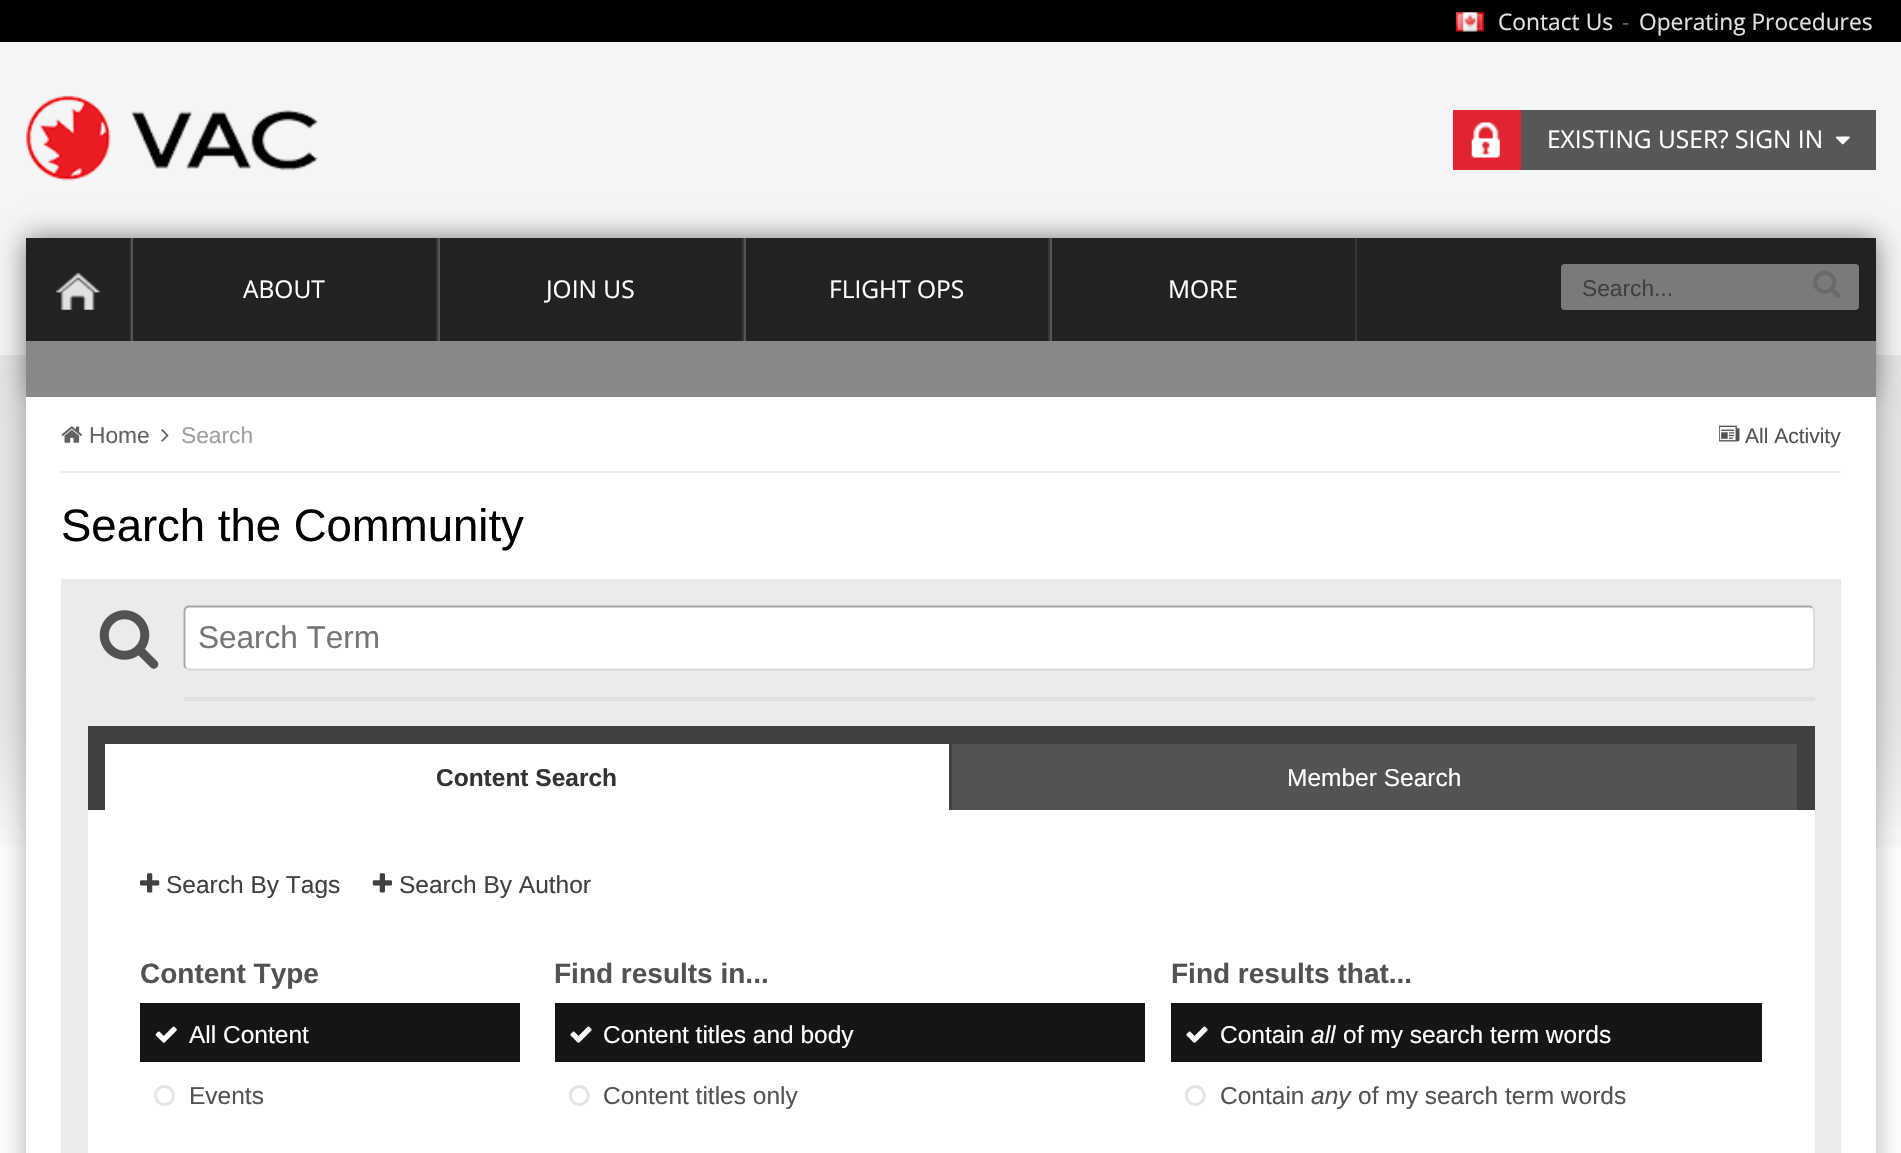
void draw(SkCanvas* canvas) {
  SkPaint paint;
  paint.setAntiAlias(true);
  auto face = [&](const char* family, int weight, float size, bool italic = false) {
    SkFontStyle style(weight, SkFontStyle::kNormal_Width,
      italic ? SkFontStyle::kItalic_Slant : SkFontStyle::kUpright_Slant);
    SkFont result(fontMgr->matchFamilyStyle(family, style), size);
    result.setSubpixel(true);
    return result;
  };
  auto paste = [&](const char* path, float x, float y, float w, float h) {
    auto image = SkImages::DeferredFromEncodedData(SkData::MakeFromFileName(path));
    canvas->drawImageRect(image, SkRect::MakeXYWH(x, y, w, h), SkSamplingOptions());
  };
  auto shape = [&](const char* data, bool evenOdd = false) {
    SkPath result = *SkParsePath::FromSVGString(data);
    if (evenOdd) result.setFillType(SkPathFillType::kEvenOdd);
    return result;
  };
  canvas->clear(0xffffffff);
  paste("img/1.png", 0, 355, 1901, 492);
  paint.setColor(0xff000000);
  canvas->drawRect(SkRect::MakeXYWH(0, 0, 1901, 42), paint);
  paste("img/2.png", 1456, 12, 28, 20);
  paint.setColor(0xfff5f5f5);
  canvas->drawRect(SkRect::MakeXYWH(0, 42, 1901, 313), paint);
  paste("img/3.png", 26, 95, 293, 86);
  paint.setColor(0xff575757);
  canvas->drawRect(SkRect::MakeXYWH(1521, 110, 355, 60), paint);
  paint.setColor(0xffe1242f);
  canvas->drawRect(SkRect::MakeXYWH(1453, 110, 68, 60), paint);
  paste("img/4.png", 1471, 122, 29, 36);
  paste("img/5.png", 1835, 136, 15, 9);
  paint.setColor(0x80000000);
  paint.setMaskFilter(SkMaskFilter::MakeBlur(kNormal_SkBlurStyle, 13));
  canvas->drawRect(SkRect::MakeXYWH(26, 238, 1850, 159), paint);
  paint.setMaskFilter(nullptr);
  paint.setColor(0xff222222);
  canvas->drawRect(SkRect::MakeXYWH(26, 238, 1850, 103), paint);
  paint.setColor(0xff373737);
  canvas->drawRect(SkRect::MakeXYWH(130, 238, 1, 103), paint);
  paste("img/6.png", 56, 273, 44, 37);
  {
    const struct { float x, y, w, h; SkColor color; } items[] = {
      {436, 238, 2, 103, 0xff373737},
      {131, 238, 2, 103, 0xff555555},
      {742, 238, 2, 103, 0xff373737},
      {438, 238, 2, 103, 0xff555555},
      {1048, 238, 2, 103, 0xff373737},
      {744, 238, 2, 103, 0xff555555},
      {1355, 238, 2, 103, 0xff373737},
      {1050, 238, 2, 103, 0xff555555},
    };
    for (auto [x, y, w, h, color] : items) {
      paint.setColor(color);
      canvas->drawRect(SkRect::MakeXYWH(x, y, w, h), paint);
    }
  }
  paint.setColor(0x4d000000);
  paint.setMaskFilter(SkMaskFilter::MakeBlur(kNormal_SkBlurStyle, 13));
  canvas->drawRect(SkRect::MakeXYWH(26, 397, 1850, 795), paint);
  paint.setMaskFilter(nullptr);
  paint.setColor(0xff888888);
  canvas->drawRect(SkRect::MakeXYWH(26, 341, 1850, 56), paint);
  paint.setColor(0xff7a7a7a);
  canvas->drawRoundRect(SkRect::MakeXYWH(1561, 264, 298, 46), 4, 4, paint);
  paste("img/7.png", 1813, 270, 28, 28);
  paint.setColor(0xffffffff);
  canvas->drawRect(SkRect::MakeXYWH(26, 397, 1850, 756), paint);
  paint.setColor(0xffececec);
  canvas->drawRect(SkRect::MakeXYWH(61, 471, 1780, 2), paint);
  paste("img/8.png", 61, 426, 21, 17);
  paste("img/9.png", 161, 429, 8, 13);
  paste("img/10.png", 1719, 425, 21, 17);
  paint.setColor(0xffebebeb);
  canvas->drawRect(SkRect::MakeXYWH(61, 579, 1780, 574), paint);
  paste("img/11.png", 99, 610, 60, 59);
  paint.setColor(0xffffffff);
  canvas->drawRoundRect(SkRect::MakeXYWH(184, 606, 1631, 64), 5, 5, paint);
  paint.setStroke(true);
  paint.setStrokeWidth(1.8f);
  paint.setColor(0xffd9d9d9);
  canvas->drawPath(shape("M1812.5 607.5L1814 610V665.5C1813.5 667.5 1811.5 669.5 1809.5 669.5H189L186 668"), paint);
  paint.setColor(0xffa6a6a6);
  canvas->drawPath(shape("M186 668L184.5 666V610.5C185 608 187 606.5 189 606.5H1809.5L1812.5 607.5"), paint);
  paint.setStroke(false);
  {
    const struct { float x, y, w, h; SkColor color; } items[] = {
      {184, 697, 1631, 4, 0xffdfdfdf},
      {88, 726, 1727, 84, 0xff404040},
      {105, 744, 844, 66, 0xffffffff},
      {952, 744, 845, 66, 0xff535353},
      {88, 810, 1727, 343, 0xffffffff},
    };
    for (auto [x, y, w, h, color] : items) {
      paint.setColor(color);
      canvas->drawRect(SkRect::MakeXYWH(x, y, w, h), paint);
    }
  }
  paste("img/12.png", 140, 873, 20, 20);
  paste("img/13.png", 372, 873, 20, 20);
  paint.setColor(0xff151515);
  canvas->drawRect(SkRect::MakeXYWH(140, 1003, 380, 59), paint);
  paste("img/14.png", 155, 1026, 22, 17);
  paste("img/15.png", 154, 1085, 21, 21);
  canvas->drawRect(SkRect::MakeXYWH(555, 1003, 590, 59), paint);
  paste("img/16.png", 570, 1026, 22, 17);
  paste("img/17.png", 568, 1085, 22, 21);
  canvas->drawRect(SkRect::MakeXYWH(1171, 1003, 591, 59), paint);
  paste("img/16.png", 1186, 1026, 22, 17);
  paste("img/17.png", 1184, 1085, 22, 21);
  auto f0 = face("Open Sans", 400, 22.75f);
  paint.setColor(0xffe2e2e2);
  canvas->drawString("Contact Us", 1498, 30, f0, paint);
  paint.setColor(0xff646464);
  canvas->drawString("-", 1622, 30, f0, paint);
  paint.setColor(0xffe2e2e2);
  canvas->drawString("Operating Procedures", 1639, 30, f0, paint);
  auto f1 = face("Open Sans", 400, 24.5f);
  paint.setColor(0xffffffff);
  {
    const struct { const char* s; float x, y; } items[] = {
      {"EXISTING USER? SIGN IN", 1547, 148},
      {"ABOUT", 243, 298},
      {"JOIN US", 546, 298},
      {"FLIGHT OPS", 829, 298},
      {"MORE", 1168, 298},
    };
    for (auto [s, x, y] : items) {
      canvas->drawString(s, x, y, f1, paint);
    }
  }
  auto f2 = face("Liberation Sans", 400, 22.75f);
  paint.setColor(0xff404040);
  canvas->drawString("Search...", 1582, 296, f2, paint);
  paint.setColor(0xff646464);
  canvas->drawString("Home", 89, 443, f2, paint);
  paint.setColor(0xffa0a0a0);
  canvas->drawString("Search", 181, 443, f2, paint);
  auto f3 = face("Liberation Sans", 400, 21);
  paint.setColor(0xff525252);
  canvas->drawString("All Activity", 1745, 443, f3, paint);
  auto f4 = face("Liberation Sans", 400, 45.5f);
  paint.setColor(0xff000000);
  canvas->drawString("Search the Community", 61, 541, f4, paint);
  auto f5 = face("Liberation Sans", 400, 31.5f);
  paint.setColor(0xff757575);
  canvas->drawString("Search Term", 198, 648, f5, paint);
  auto f6 = face("Liberation Sans", 700, 24.5f);
  paint.setColor(0xff333333);
  canvas->drawString("Content Search", 436, 786, f6, paint);
  auto f7 = face("Liberation Sans", 400, 24.5f);
  paint.setColor(0xffffffff);
  canvas->drawString("Member Search", 1287, 786, f7, paint);
  paint.setColor(0xff404040);
  canvas->drawString("Search By Tags", 166, 893, f7, paint);
  canvas->drawString("Search By Author", 399, 893, f7, paint);
  auto f8 = face("Liberation Sans", 700, 28);
  paint.setColor(0xff525252);
  canvas->drawString("Content Type", 140, 983, f8, paint);
  paint.setColor(0xffffffff);
  canvas->drawString("All Content", 189, 1043, f7, paint);
  paint.setColor(0xff525252);
  canvas->drawString("Events", 189, 1104, f7, paint);
  canvas->drawString("Find results in...", 554, 983, f8, paint);
  paint.setColor(0xffffffff);
  canvas->drawString("Content titles and body", 603, 1043, f7, paint);
  paint.setColor(0xff525252);
  canvas->drawString("Content titles only", 603, 1104, f7, paint);
  canvas->drawString("Find results that...", 1171, 983, f8, paint);
  paint.setColor(0xffffffff);
  canvas->drawString("Contain", 1220, 1043, f7, paint);
  auto f9 = face("Liberation Sans", 400, 24.5f, true);
  canvas->drawString("all", 1311, 1043, f9, paint);
  canvas->drawString("of my search term words", 1343, 1043, f7, paint);
  paint.setColor(0xff525252);
  canvas->drawString("Contain", 1220, 1104, f7, paint);
  canvas->drawString("any", 1311, 1104, f9, paint);
  canvas->drawString("of my search term words", 1358, 1104, f7, paint);
}
